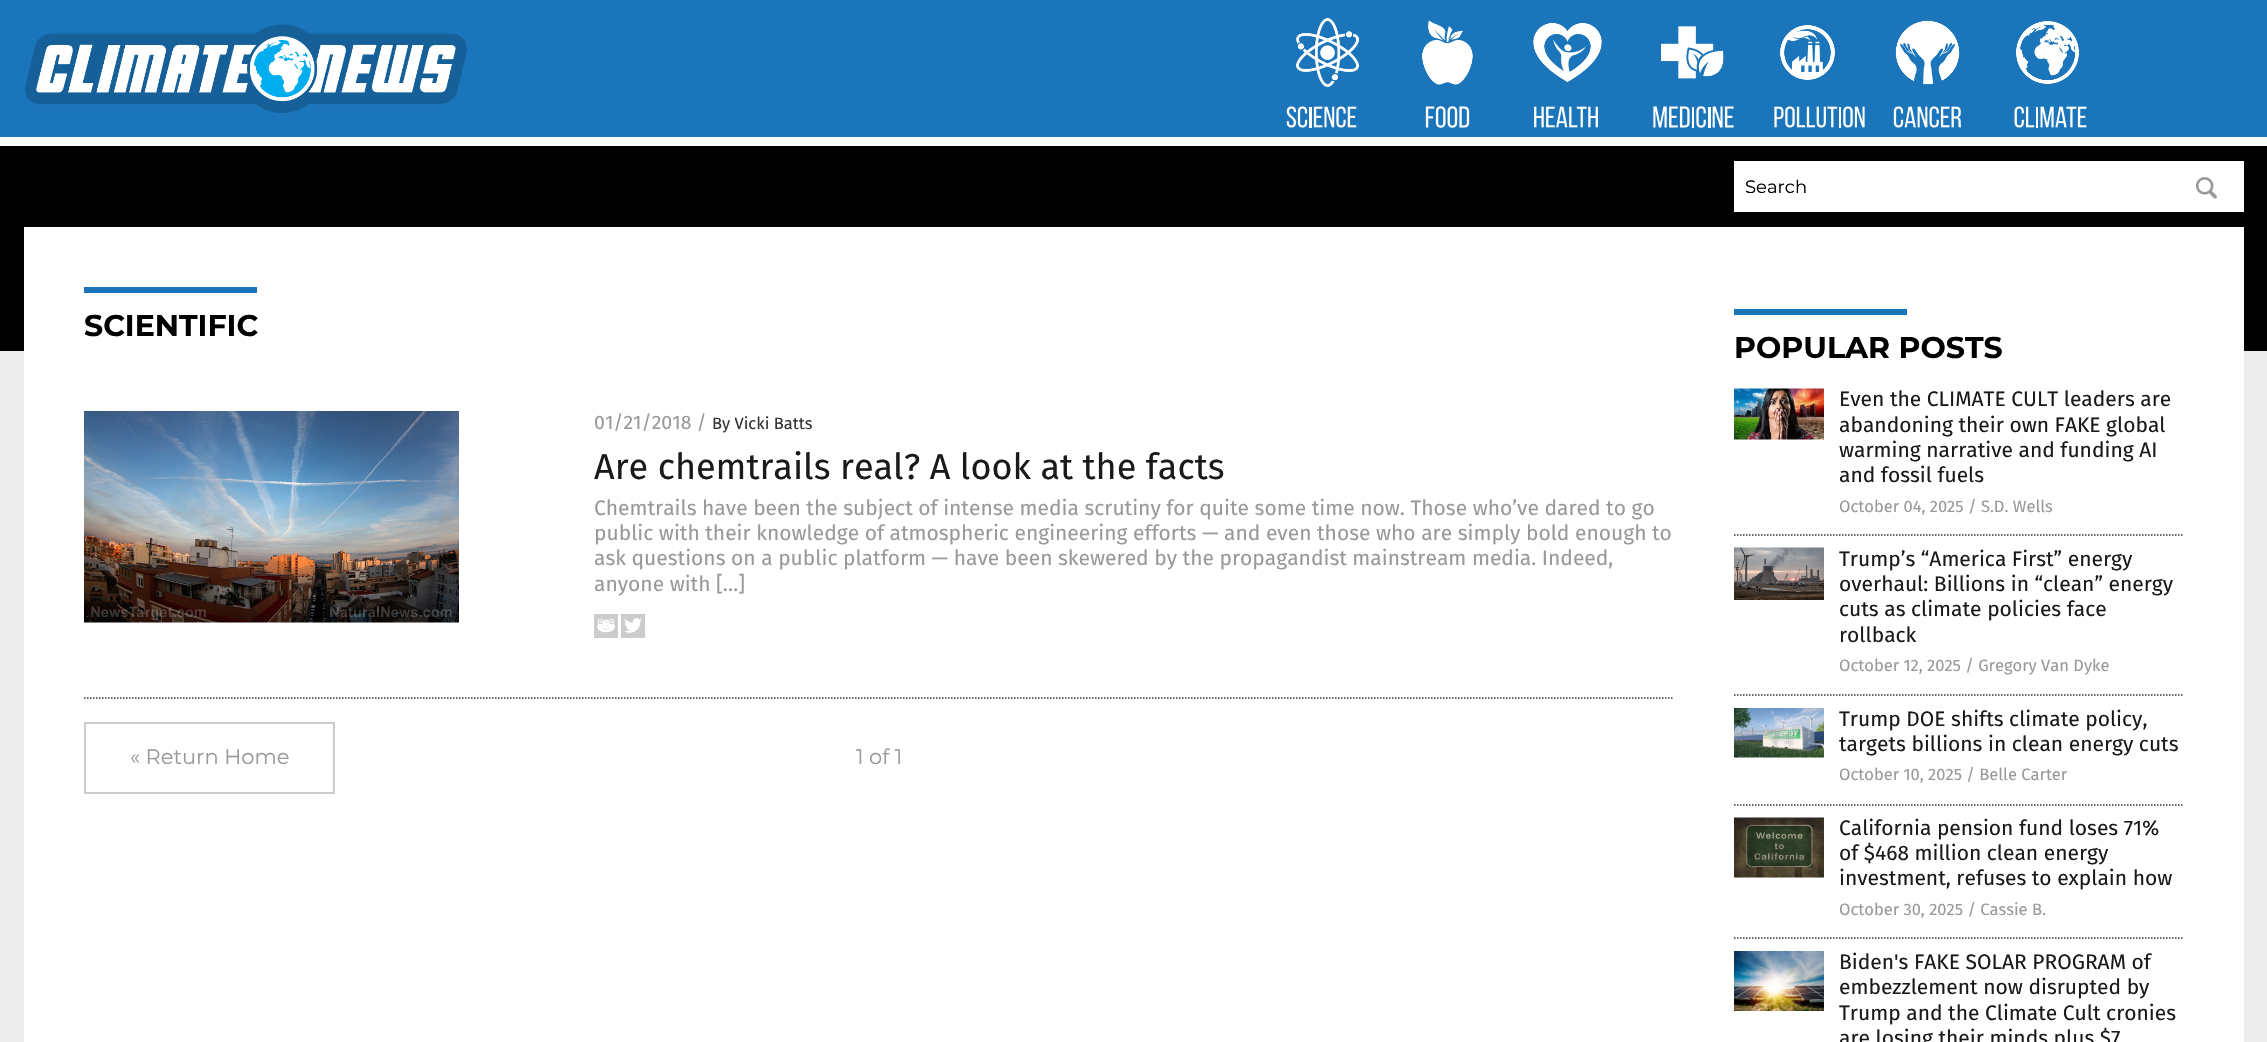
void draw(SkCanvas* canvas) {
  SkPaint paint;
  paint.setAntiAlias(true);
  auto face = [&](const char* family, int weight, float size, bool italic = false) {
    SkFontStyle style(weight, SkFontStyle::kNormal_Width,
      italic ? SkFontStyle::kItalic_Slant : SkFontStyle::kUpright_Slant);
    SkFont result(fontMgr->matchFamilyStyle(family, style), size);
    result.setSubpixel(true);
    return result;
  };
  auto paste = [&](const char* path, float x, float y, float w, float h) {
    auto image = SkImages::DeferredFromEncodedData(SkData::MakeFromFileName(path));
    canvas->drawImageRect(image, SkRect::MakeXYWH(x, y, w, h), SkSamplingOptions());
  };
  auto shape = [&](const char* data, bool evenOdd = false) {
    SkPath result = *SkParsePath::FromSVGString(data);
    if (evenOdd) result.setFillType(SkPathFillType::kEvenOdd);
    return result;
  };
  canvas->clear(0xffececec);
  paint.setColor(0xff000000);
  canvas->drawRect(SkRect::MakeXYWH(0, 146, 2267, 205), paint);
  paint.setColor(0xff1b75bb);
  canvas->drawRect(SkRect::MakeXYWH(0, 0, 2267, 137), paint);
  paste("img/1.png", 25, 24, 442, 89);
  paste("img/2.png", 1296, 18, 64, 69);
  paste("img/3.png", 1286, 106, 71, 22);
  paste("img/4.png", 1422, 20, 51, 65);
  paste("img/5.png", 1425, 106, 45, 22);
  paste("img/6.png", 1533, 22, 69, 61);
  paste("img/7.png", 1534, 106, 64, 22);
  paste("img/8.png", 1661, 26, 63, 53);
  paste("img/9.png", 1653, 106, 81, 22);
  paste("img/10.png", 1780, 25, 55, 55);
  paste("img/11.png", 1774, 106, 91, 22);
  paste("img/12.png", 1895, 20, 65, 65);
  paste("img/13.png", 1893, 106, 69, 22);
  paste("img/14.png", 2016, 21, 63, 63);
  paste("img/15.png", 2014, 106, 73, 22);
  paint.setColor(0xffffffff);
  canvas->drawRect(SkRect::MakeXYWH(0, 137, 2267, 9), paint);
  canvas->drawRect(SkRect::MakeXYWH(1734, 161, 510, 51), paint);
  paste("img/16.png", 2195, 177, 22, 22);
  canvas->drawRect(SkRect::MakeXYWH(24, 227, 2220, 815), paint);
  paint.setColor(0xff1b75bb);
  canvas->drawRect(SkRect::MakeXYWH(84, 287, 173, 6), paint);
  paint.setStroke(true);
  paint.setStrokeWidth(1.5f);
  paint.setColor(0xff343434);
  paint.setPathEffect(SkDashPathEffect::Make({{1.5f, 1.5f}}, 0));
  canvas->drawPath(shape("M84 698H1674"), paint);
  paint.setPathEffect(nullptr);
  paste("img/17.png", 84, 411, 375, 212);
  paste("img/18.png", 594, 614, 24, 24);
  paste("img/19.png", 621, 614, 24, 24);
  paint.setStrokeWidth(2);
  paint.setColor(0xffcccccc);
  canvas->drawRect(SkRect::MakeXYWH(85, 723, 249, 70), paint);
  paint.setStroke(false);
  paint.setColor(0xff1b75bb);
  canvas->drawRect(SkRect::MakeXYWH(1734, 309, 173, 6), paint);
  paint.setStroke(true);
  paint.setStrokeWidth(1.5f);
  paint.setColor(0xff343434);
  paint.setPathEffect(SkDashPathEffect::Make({{1.5f, 1.5f}}, 0));
  canvas->drawPath(shape("M1734 535H2184"), paint);
  paint.setPathEffect(nullptr);
  paste("img/20.png", 1734, 388, 90, 52);
  paint.setPathEffect(SkDashPathEffect::Make({{1.5f, 1.5f}}, 0));
  canvas->drawPath(shape("M1734 695H2184"), paint);
  paint.setPathEffect(nullptr);
  paste("img/21.png", 1734, 547, 90, 53);
  paint.setPathEffect(SkDashPathEffect::Make({{1.5f, 1.5f}}, 0));
  canvas->drawPath(shape("M1734 805H2184"), paint);
  paint.setPathEffect(nullptr);
  paste("img/22.png", 1734, 708, 90, 50);
  paint.setPathEffect(SkDashPathEffect::Make({{1.5f, 1.5f}}, 0));
  canvas->drawPath(shape("M1734 938H2184"), paint);
  paint.setPathEffect(nullptr);
  paste("img/23.png", 1734, 817, 90, 61);
  paste("img/24.png", 1734, 951, 90, 60);
  auto f0 = face("Montserrat", 400, 18);
  paint.setStroke(false);
  paint.setColor(0xff000000);
  canvas->drawString("Search", 1745, 193, f0, paint);
  auto f1 = face("Montserrat", 700, 30);
  canvas->drawString("SCIENTIFIC", 84, 336, f1, paint);
  auto f2 = face("Fira Sans", 400, 19.5f);
  paint.setColor(0xff999999);
  canvas->drawString("01/21/2018 /", 594, 429, f2, paint);
  auto f3 = face("Fira Sans", 400, 16.5f);
  paint.setColor(0xff333333);
  canvas->drawString("By Vicki Batts", 712, 429, f3, paint);
  auto f4 = face("Fira Sans", 400, 36);
  paint.setColor(0xff1a1a1a);
  canvas->drawString("Are chemtrails real? A look at the facts", 594, 479, f4, paint);
  auto f5 = face("Fira Sans", 400, 21);
  paint.setColor(0xff999999);
  {
    const struct { const char* s; float x, y; } items[] = {
      {"Chemtrails have been the subject of intense media scrutiny for quite some time now. Those who’ve dared to go", 594, 515},
      {"public with their knowledge of atmospheric engineering efforts — and even those who are simply bold enough to", 594, 540},
      {"ask questions on a public platform — have been skewered by the propagandist mainstream media. Indeed,", 594, 565},
      {"anyone with […]", 594, 591},
    };
    for (auto [s, x, y] : items) {
      canvas->drawString(s, x, y, f5, paint);
    }
  }
  auto f6 = face("Montserrat", 400, 21);
  canvas->drawString("« Return Home", 130, 764, f6, paint);
  canvas->drawString("1 of 1", 856, 764, f6, paint);
  paint.setColor(0xff000000);
  canvas->drawString("POPULAR POSTS", 1734, 358, f1, paint);
  paint.setColor(0xff1a1a1a);
  {
    const struct { const char* s; float x, y; } items[] = {
      {"Even the CLIMATE CULT leaders are", 1839, 406},
      {"abandoning their own FAKE global", 1839, 432},
      {"warming narrative and funding AI", 1839, 457},
      {"and fossil fuels", 1839, 482},
    };
    for (auto [s, x, y] : items) {
      canvas->drawString(s, x, y, f5, paint);
    }
  }
  paint.setColor(0xff999999);
  canvas->drawString("October 04, 2025 / S.D. Wells", 1839, 512, f3, paint);
  paint.setColor(0xff1a1a1a);
  {
    const struct { const char* s; float x, y; } items[] = {
      {"Trump’s “America First” energy", 1839, 566},
      {"overhaul: Billions in “clean” energy", 1839, 591},
      {"cuts as climate policies face", 1839, 616},
      {"rollback", 1839, 642},
    };
    for (auto [s, x, y] : items) {
      canvas->drawString(s, x, y, f5, paint);
    }
  }
  paint.setColor(0xff999999);
  canvas->drawString("October 12, 2025 / Gregory Van Dyke", 1839, 671, f3, paint);
  paint.setColor(0xff1a1a1a);
  canvas->drawString("Trump DOE shifts climate policy,", 1839, 726, f5, paint);
  canvas->drawString("targets billions in clean energy cuts", 1839, 751, f5, paint);
  paint.setColor(0xff999999);
  canvas->drawString("October 10, 2025 / Belle Carter", 1839, 780, f3, paint);
  paint.setColor(0xff1a1a1a);
  {
    const struct { const char* s; float x, y; } items[] = {
      {"California pension fund loses 71%", 1839, 835},
      {"of $468 million clean energy", 1839, 860},
      {"investment, refuses to explain how", 1839, 885},
    };
    for (auto [s, x, y] : items) {
      canvas->drawString(s, x, y, f5, paint);
    }
  }
  paint.setColor(0xff999999);
  canvas->drawString("October 30, 2025 / Cassie B.", 1839, 915, f3, paint);
  paint.setColor(0xff1a1a1a);
  {
    const struct { const char* s; float x, y; } items[] = {
      {"Biden's FAKE SOLAR PROGRAM of", 1839, 969},
      {"embezzlement now disrupted by", 1839, 994},
      {"Trump and the Climate Cult cronies", 1839, 1020},
      {"are losing their minds plus $7", 1839, 1045},
    };
    for (auto [s, x, y] : items) {
      canvas->drawString(s, x, y, f5, paint);
    }
  }
}
